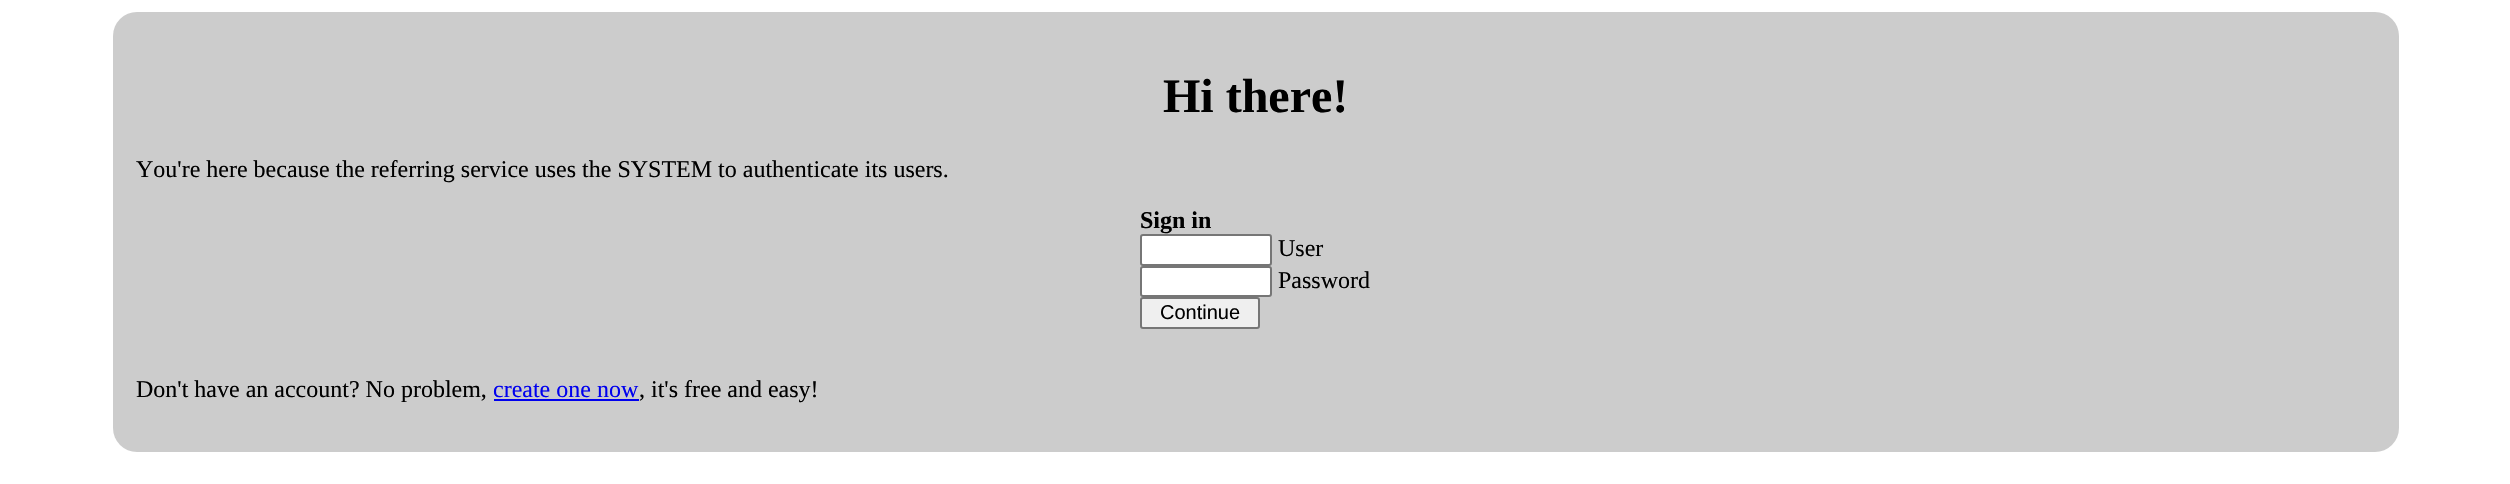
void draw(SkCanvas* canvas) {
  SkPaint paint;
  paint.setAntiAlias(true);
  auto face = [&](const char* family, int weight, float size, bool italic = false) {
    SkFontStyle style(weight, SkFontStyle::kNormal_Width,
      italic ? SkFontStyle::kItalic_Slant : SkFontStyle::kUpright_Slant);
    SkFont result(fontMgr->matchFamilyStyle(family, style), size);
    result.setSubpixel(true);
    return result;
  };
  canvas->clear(0xffffffff);
  paint.setColor(0xffcccccc);
  canvas->drawRoundRect(SkRect::MakeXYWH(113, 12, 2286, 440), 24, 24, paint);
  paint.setColor(0xffffffff);
  canvas->drawRoundRect(SkRect::MakeXYWH(1141, 235, 130, 30), 2, 2, paint);
  paint.setStroke(true);
  paint.setStrokeWidth(2);
  paint.setColor(0xff767676);
  canvas->drawRoundRect(SkRect::MakeXYWH(1141, 235, 130, 30), 2, 2, paint);
  paint.setStroke(false);
  paint.setColor(0xffffffff);
  canvas->drawRoundRect(SkRect::MakeXYWH(1141, 267, 130, 29), 2, 2, paint);
  paint.setStroke(true);
  paint.setColor(0xff767676);
  canvas->drawRoundRect(SkRect::MakeXYWH(1141, 267, 130, 29), 2, 2, paint);
  paint.setStroke(false);
  paint.setColor(0xffefefef);
  canvas->drawRoundRect(SkRect::MakeXYWH(1141, 298, 118, 30), 2, 2, paint);
  paint.setStroke(true);
  paint.setColor(0xff767676);
  canvas->drawRoundRect(SkRect::MakeXYWH(1141, 298, 118, 30), 2, 2, paint);
  paint.setStroke(false);
  paint.setColor(0xff0000ee);
  canvas->drawRect(SkRect::MakeXYWH(494, 399, 145, 2), paint);
  auto f0 = face("Liberation Serif", 700, 48);
  paint.setColor(0xff000000);
  canvas->drawString("Hi there!", 1163, 112, f0, paint);
  auto f1 = face("Liberation Serif", 400, 24);
  canvas->drawString("You're here because the referring service uses the SYSTEM to authenticate its users.", 136, 177, f1, paint);
  auto f2 = face("Liberation Serif", 700, 24);
  canvas->drawString("Sign in", 1140, 228, f2, paint);
  canvas->drawString("User", 1278, 256, f1, paint);
  canvas->drawString("Password", 1278, 288, f1, paint);
  auto f3 = face("Liberation Sans", 400, 20);
  canvas->drawString("Continue", 1160, 319, f3, paint);
  canvas->drawString("Don't have an account? No problem,", 136, 397, f1, paint);
  paint.setColor(0xff0000ee);
  canvas->drawString("create one now", 493, 397, f1, paint);
  paint.setColor(0xff000000);
  canvas->drawString(", it's free and easy!", 639, 397, f1, paint);
}
